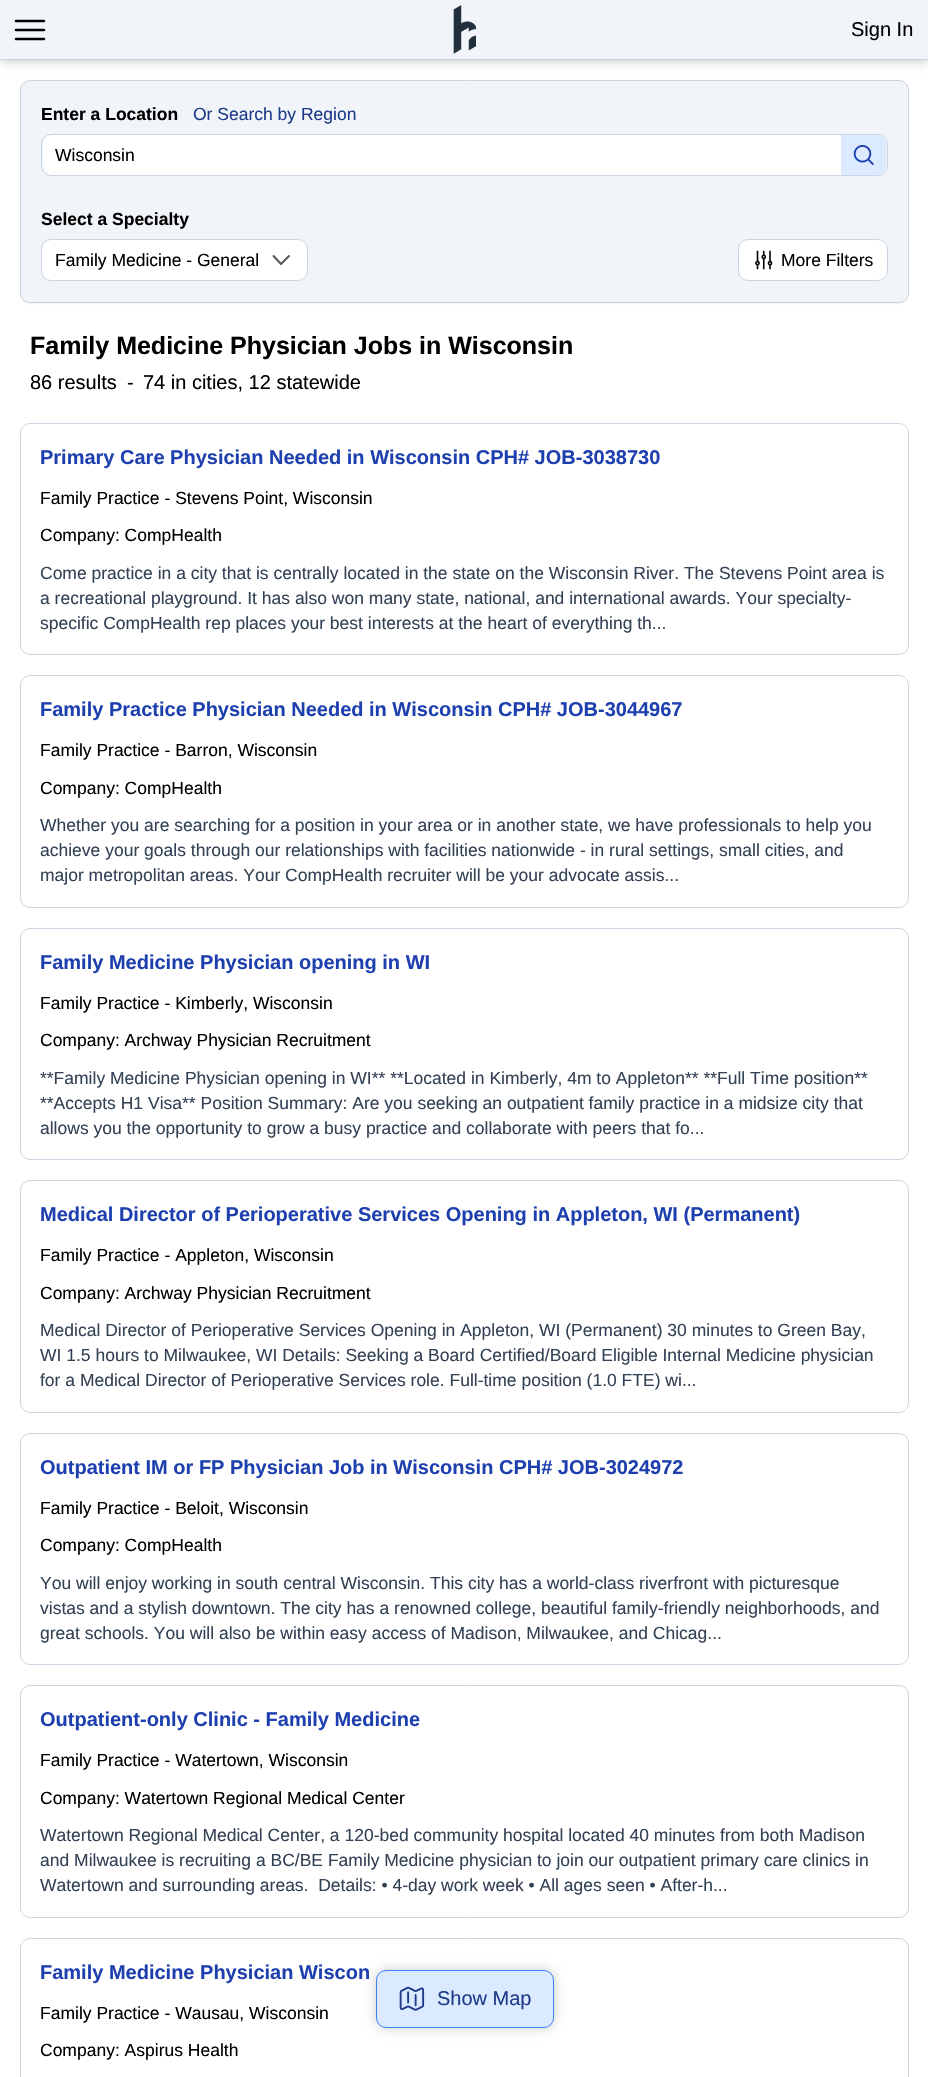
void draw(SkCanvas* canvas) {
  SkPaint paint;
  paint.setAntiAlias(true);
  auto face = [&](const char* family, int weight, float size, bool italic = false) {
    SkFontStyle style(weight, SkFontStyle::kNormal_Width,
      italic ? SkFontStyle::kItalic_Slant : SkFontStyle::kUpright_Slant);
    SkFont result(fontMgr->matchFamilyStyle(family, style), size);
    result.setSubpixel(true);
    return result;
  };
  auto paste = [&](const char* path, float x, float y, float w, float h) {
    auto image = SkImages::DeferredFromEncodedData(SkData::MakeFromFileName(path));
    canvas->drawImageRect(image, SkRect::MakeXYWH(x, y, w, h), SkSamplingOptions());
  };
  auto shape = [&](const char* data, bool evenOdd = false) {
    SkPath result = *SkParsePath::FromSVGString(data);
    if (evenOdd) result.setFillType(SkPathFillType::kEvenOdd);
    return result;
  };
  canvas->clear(0xffffffff);
  paint.setColor(0x1a000000);
  paint.setMaskFilter(SkMaskFilter::MakeBlur(kNormal_SkBlurStyle, 2.5f));
  canvas->drawRect(SkRect::MakeXYWH(3, 5, 923, 55), paint);
  paint.setMaskFilter(nullptr);
  paint.setMaskFilter(SkMaskFilter::MakeBlur(kNormal_SkBlurStyle, 4));
  canvas->drawRect(SkRect::MakeXYWH(1, 6, 927, 58), paint);
  paint.setMaskFilter(nullptr);
  paint.setColor(0xfff1f5f9);
  canvas->drawRect(SkRect::MakeXYWH(0, 0, 928, 59), paint);
  paint.setColor(0xffcbd5e1);
  canvas->drawRect(SkRect::MakeXYWH(0, 59, 928, 1), paint);
  paint.setStroke(true);
  paint.setStrokeWidth(2.5f);
  paint.setStrokeCap(SkPaint::kRound_Cap);
  paint.setStrokeJoin(SkPaint::kRound_Join);
  paint.setColor(0xff000000);
  canvas->drawPath(shape("M16 21H44M16 30H44M16 39H44"), paint);
  paste("img/1.png", 453, 5, 23, 49);
  paint.setStroke(false);
  paint.setColor(0x0d000000);
  paint.setMaskFilter(SkMaskFilter::MakeBlur(kNormal_SkBlurStyle, 1));
  canvas->drawRoundRect(SkRect::MakeXYWH(20, 81, 889, 223), 10, 10, paint);
  paint.setMaskFilter(nullptr);
  paint.setColor(0xfff1f5f9);
  canvas->drawRoundRect(SkRect::MakeXYWH(20.5f, 80.5f, 888, 222), 9.5f, 9.5f, paint);
  paint.setStroke(true);
  paint.setStrokeWidth(1);
  paint.setStrokeCap(SkPaint::kButt_Cap);
  paint.setStrokeJoin(SkPaint::kMiter_Join);
  paint.setColor(0xffcbd5e1);
  canvas->drawRoundRect(SkRect::MakeXYWH(20.5f, 80.5f, 888, 222), 9.5f, 9.5f, paint);
  canvas->drawRoundRect(SkRect::MakeXYWH(41.5f, 134.5f, 846, 41), 9.5f, 9.5f, paint);
  canvas->save();
  canvas->clipPath(shape("M52 135H877C882 135 886 139 886 144V166C886 171 882 175 877 175H52C47 175 43 171 43 166V144C43 139 47 135 52 135Z"), true);
  paint.setStroke(false);
  paint.setColor(0xffffffff);
  canvas->drawPath(shape("M53 135H841V175H53C47.5 175 43 170.5 43 165V145C43 139.5 47.5 135 53 135Z"), paint);
  canvas->restore();
  paint.setColor(0xffdbeafe);
  canvas->drawPath(shape("M841 135H877C882 135 886 139 886 144V166C886 171 882 175 877 175H841Z"), paint);
  paste("img/2.png", 853, 145, 21, 20);
  paint.setColor(0xffffffff);
  canvas->drawRoundRect(SkRect::MakeXYWH(41.5f, 239.5f, 266, 41), 9.5f, 9.5f, paint);
  paint.setStroke(true);
  paint.setColor(0xffcbd5e1);
  canvas->drawRoundRect(SkRect::MakeXYWH(41.5f, 239.5f, 266, 41), 9.5f, 9.5f, paint);
  paint.setStrokeWidth(1.9f);
  paint.setStrokeCap(SkPaint::kRound_Cap);
  paint.setStrokeJoin(SkPaint::kRound_Join);
  paint.setColor(0xff525252);
  canvas->drawPath(shape("M289 256L281 264L273.5 256"), paint);
  paint.setStroke(false);
  paint.setColor(0xffffffff);
  canvas->drawRoundRect(SkRect::MakeXYWH(738.5f, 239.5f, 149, 41), 9.5f, 9.5f, paint);
  paint.setStroke(true);
  paint.setStrokeWidth(1);
  paint.setStrokeCap(SkPaint::kButt_Cap);
  paint.setStrokeJoin(SkPaint::kMiter_Join);
  paint.setColor(0xffcbd5e1);
  canvas->drawRoundRect(SkRect::MakeXYWH(738.5f, 239.5f, 149, 41), 9.5f, 9.5f, paint);
  paste("img/3.png", 755, 250, 18, 20);
  canvas->drawRoundRect(SkRect::MakeXYWH(20.5f, 423.5f, 888, 231), 9.5f, 9.5f, paint);
  canvas->drawRoundRect(SkRect::MakeXYWH(20.5f, 675.5f, 888, 232), 9.5f, 9.5f, paint);
  canvas->drawRoundRect(SkRect::MakeXYWH(20.5f, 928.5f, 888, 231), 9.5f, 9.5f, paint);
  canvas->drawRoundRect(SkRect::MakeXYWH(20.5f, 1180.5f, 888, 232), 9.5f, 9.5f, paint);
  canvas->drawRoundRect(SkRect::MakeXYWH(20.5f, 1433.5f, 888, 231), 9.5f, 9.5f, paint);
  canvas->drawRoundRect(SkRect::MakeXYWH(20.5f, 1685.5f, 888, 232), 9.5f, 9.5f, paint);
  canvas->drawRoundRect(SkRect::MakeXYWH(20.5f, 1938.5f, 888, 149), 9.5f, 9.5f, paint);
  paint.setStroke(false);
  paint.setColor(0x33000000);
  paint.setMaskFilter(SkMaskFilter::MakeBlur(kNormal_SkBlurStyle, 6));
  canvas->drawRoundRect(SkRect::MakeXYWH(376, 1970, 178, 58), 10, 10, paint);
  paint.setMaskFilter(nullptr);
  paint.setColor(0xffdbeafe);
  canvas->drawRoundRect(SkRect::MakeXYWH(376.5f, 1970.5f, 177, 57), 9.5f, 9.5f, paint);
  paint.setStroke(true);
  paint.setColor(0xff3b82f6);
  canvas->drawRoundRect(SkRect::MakeXYWH(376.5f, 1970.5f, 177, 57), 9.5f, 9.5f, paint);
  paste("img/4.png", 399, 1986, 26, 25);
  auto f0 = face("Liberation Sans", 400, 20);
  paint.setStroke(false);
  paint.setColor(0xff000000);
  canvas->drawString("Sign In", 851, 36, f0, paint);
  auto f1 = face("Liberation Sans", 700, 17.5f);
  canvas->drawString("Enter a Location", 41, 120, f1, paint);
  auto f2 = face("Liberation Sans", 400, 17.5f);
  paint.setColor(0xff1e3a8a);
  canvas->drawString("Or Search by Region", 193, 120, f2, paint);
  paint.setColor(0xff000000);
  canvas->drawString("Wisconsin", 55, 161, f2, paint);
  canvas->drawString("Select a Specialty", 41, 225, f1, paint);
  canvas->drawString("Family Medicine - General", 55, 266, f2, paint);
  canvas->drawString("More Filters", 781, 266, f2, paint);
  auto f3 = face("Liberation Sans", 700, 25);
  canvas->drawString("Family Medicine Physician Jobs in Wisconsin", 30, 354, f3, paint);
  {
    const struct { const char* s; float x, y; } items[] = {
      {"86 results", 30, 389},
      {"-", 127, 389},
      {"74 in cities, 12 statewide", 143, 389},
    };
    for (auto [s, x, y] : items) {
      canvas->drawString(s, x, y, f0, paint);
    }
  }
  auto f4 = face("Liberation Sans", 700, 20);
  paint.setColor(0xff1e40af);
  canvas->drawString("Primary Care Physician Needed in Wisconsin CPH# JOB-3038730", 40, 464, f4, paint);
  paint.setColor(0xff000000);
  canvas->drawString("Family Practice - Stevens Point, Wisconsin", 40, 504, f2, paint);
  canvas->drawString("Company: CompHealth", 40, 541, f2, paint);
  paint.setColor(0xff334155);
  {
    const struct { const char* s; float x, y; } items[] = {
      {"Come practice in a city that is centrally located in the state on the Wisconsin River. The Stevens Point area is", 40, 579},
      {"a recreational playground. It has also won many state, national, and international awards. Your specialty-", 40, 604},
      {"specific CompHealth rep places your best interests at the heart of everything th...", 40, 629},
    };
    for (auto [s, x, y] : items) {
      canvas->drawString(s, x, y, f2, paint);
    }
  }
  paint.setColor(0xff1e40af);
  canvas->drawString("Family Practice Physician Needed in Wisconsin CPH# JOB-3044967", 40, 716, f4, paint);
  paint.setColor(0xff000000);
  canvas->drawString("Family Practice - Barron, Wisconsin", 40, 756, f2, paint);
  canvas->drawString("Company: CompHealth", 40, 794, f2, paint);
  paint.setColor(0xff334155);
  {
    const struct { const char* s; float x, y; } items[] = {
      {"Whether you are searching for a position in your area or in another state, we have professionals to help you", 40, 831},
      {"achieve your goals through our relationships with facilities nationwide - in rural settings, small cities, and", 40, 856},
      {"major metropolitan areas. Your CompHealth recruiter will be your advocate assis...", 40, 881},
    };
    for (auto [s, x, y] : items) {
      canvas->drawString(s, x, y, f2, paint);
    }
  }
  paint.setColor(0xff1e40af);
  canvas->drawString("Family Medicine Physician opening in WI", 40, 969, f4, paint);
  paint.setColor(0xff000000);
  canvas->drawString("Family Practice - Kimberly, Wisconsin", 40, 1009, f2, paint);
  canvas->drawString("Company: Archway Physician Recruitment", 40, 1046, f2, paint);
  paint.setColor(0xff334155);
  {
    const struct { const char* s; float x, y; } items[] = {
      {"**Family Medicine Physician opening in WI** **Located in Kimberly, 4m to Appleton** **Full Time position**", 40, 1084},
      {"**Accepts H1 Visa** Position Summary: Are you seeking an outpatient family practice in a midsize city that", 40, 1109},
      {"allows you the opportunity to grow a busy practice and collaborate with peers that fo...", 40, 1134},
    };
    for (auto [s, x, y] : items) {
      canvas->drawString(s, x, y, f2, paint);
    }
  }
  paint.setColor(0xff1e40af);
  canvas->drawString("Medical Director of Perioperative Services Opening in Appleton, WI (Permanent)", 40, 1221, f4, paint);
  paint.setColor(0xff000000);
  canvas->drawString("Family Practice - Appleton, Wisconsin", 40, 1261, f2, paint);
  canvas->drawString("Company: Archway Physician Recruitment", 40, 1299, f2, paint);
  paint.setColor(0xff334155);
  {
    const struct { const char* s; float x, y; } items[] = {
      {"Medical Director of Perioperative Services Opening in Appleton, WI (Permanent) 30 minutes to Green Bay,", 40, 1336},
      {"WI 1.5 hours to Milwaukee, WI Details: Seeking a Board Certified/Board Eligible Internal Medicine physician", 40, 1361},
      {"for a Medical Director of Perioperative Services role. Full-time position (1.0 FTE) wi...", 40, 1386},
    };
    for (auto [s, x, y] : items) {
      canvas->drawString(s, x, y, f2, paint);
    }
  }
  paint.setColor(0xff1e40af);
  canvas->drawString("Outpatient IM or FP Physician Job in Wisconsin CPH# JOB-3024972", 40, 1474, f4, paint);
  paint.setColor(0xff000000);
  canvas->drawString("Family Practice - Beloit, Wisconsin", 40, 1514, f2, paint);
  canvas->drawString("Company: CompHealth", 40, 1551, f2, paint);
  paint.setColor(0xff334155);
  {
    const struct { const char* s; float x, y; } items[] = {
      {"You will enjoy working in south central Wisconsin. This city has a world-class riverfront with picturesque", 40, 1589},
      {"vistas and a stylish downtown. The city has a renowned college, beautiful family-friendly neighborhoods, and", 40, 1614},
      {"great schools. You will also be within easy access of Madison, Milwaukee, and Chicag...", 40, 1639},
    };
    for (auto [s, x, y] : items) {
      canvas->drawString(s, x, y, f2, paint);
    }
  }
  paint.setColor(0xff1e40af);
  canvas->drawString("Outpatient-only Clinic - Family Medicine", 40, 1726, f4, paint);
  paint.setColor(0xff000000);
  canvas->drawString("Family Practice - Watertown, Wisconsin", 40, 1766, f2, paint);
  canvas->drawString("Company: Watertown Regional Medical Center", 40, 1804, f2, paint);
  paint.setColor(0xff334155);
  {
    const struct { const char* s; float x, y; } items[] = {
      {"Watertown Regional Medical Center, a 120-bed community hospital located 40 minutes from both Madison", 40, 1841},
      {"and Milwaukee is recruiting a BC/BE Family Medicine physician to join our outpatient primary care clinics in", 40, 1866},
      {"Watertown and surrounding areas.  Details: • 4-day work week • All ages seen • After-h...", 40, 1891},
    };
    for (auto [s, x, y] : items) {
      canvas->drawString(s, x, y, f2, paint);
    }
  }
  paint.setColor(0xff1e40af);
  canvas->drawString("Family Medicine Physician Wiscon", 40, 1979, f4, paint);
  paint.setColor(0xff000000);
  canvas->drawString("Family Practice - Wausau, Wisconsin", 40, 2019, f2, paint);
  canvas->drawString("Company: Aspirus Health", 40, 2056, f2, paint);
  paint.setColor(0xff1e3a8a);
  canvas->drawString("Show Map", 437, 2005, f0, paint);
}
